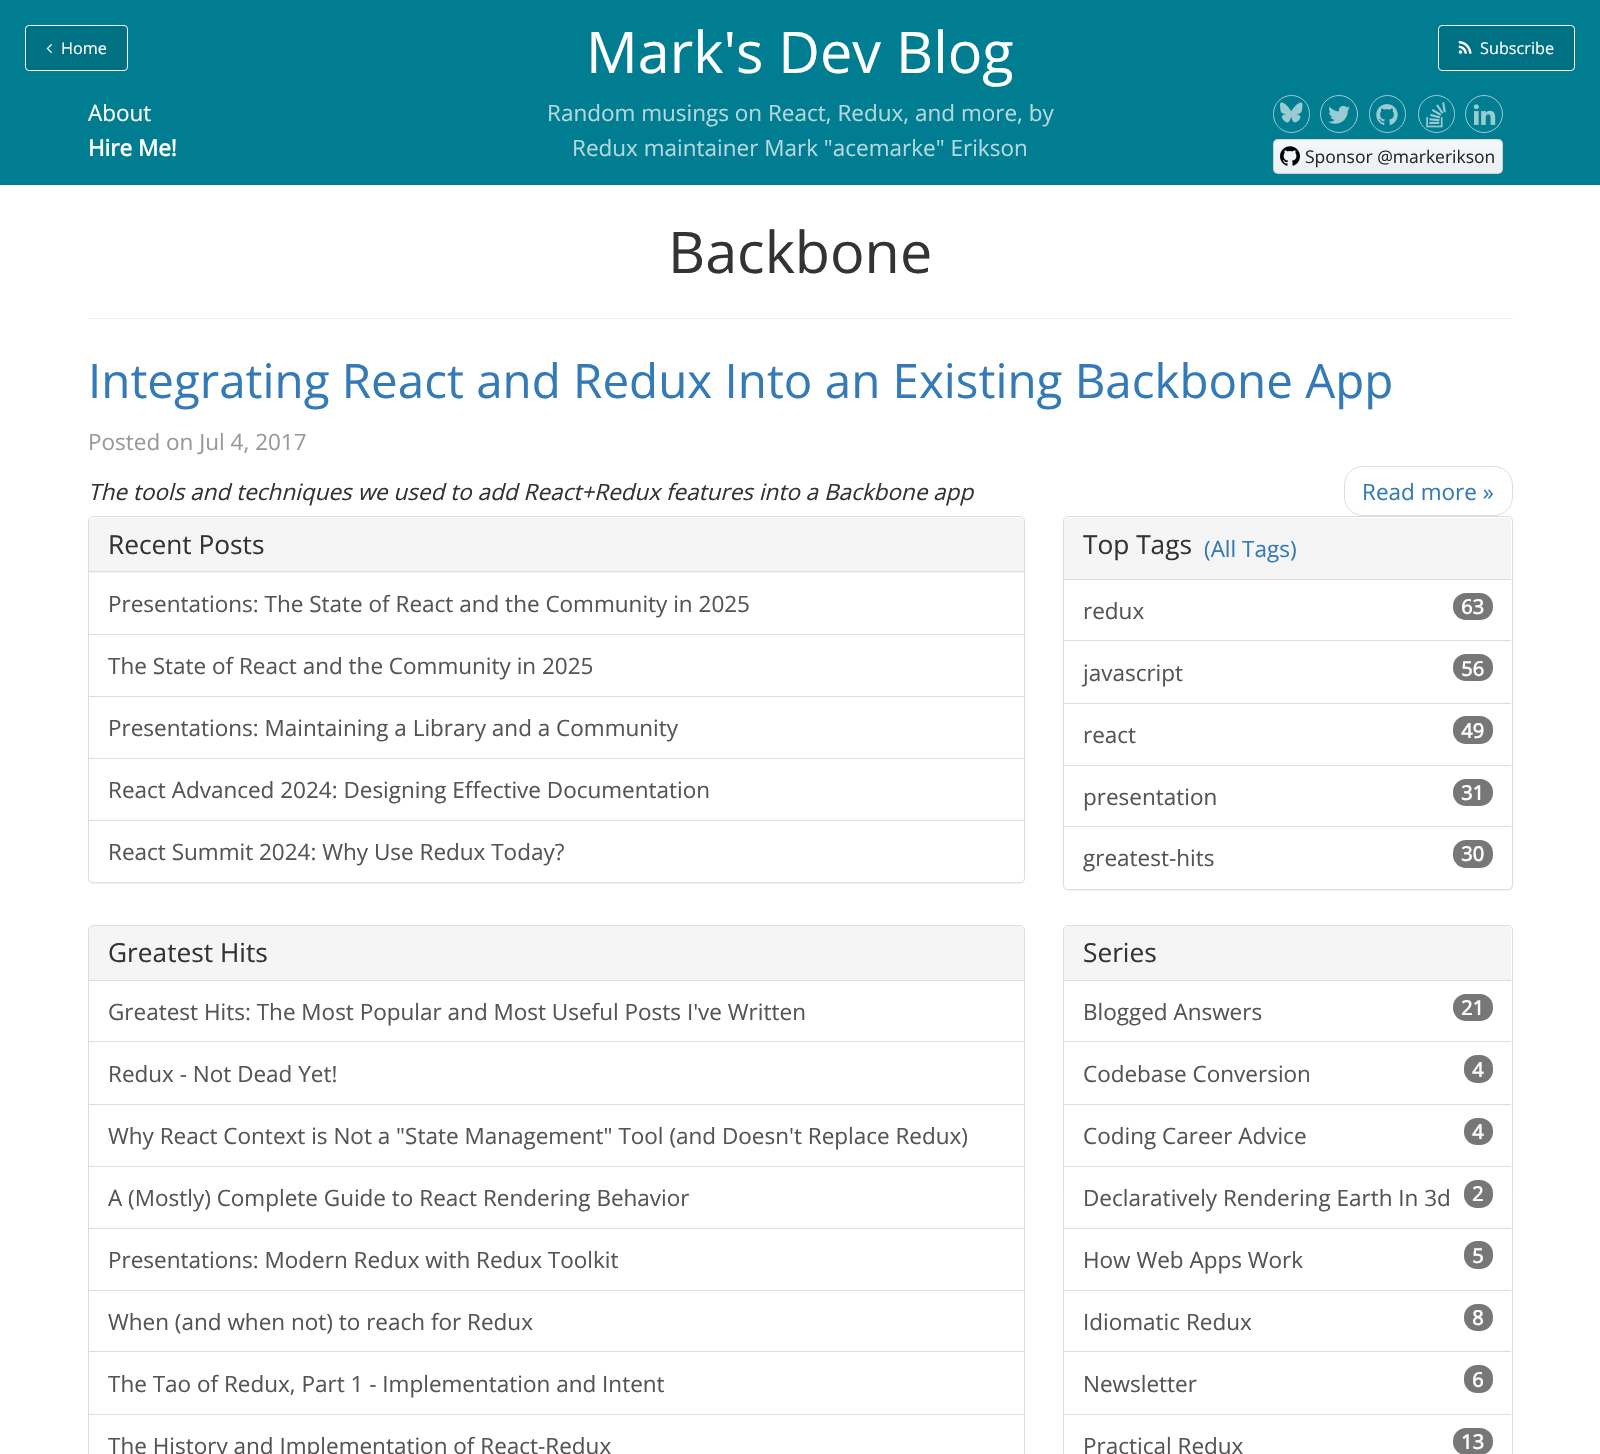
void draw(SkCanvas* canvas) {
  SkPaint paint;
  paint.setAntiAlias(true);
  auto face = [&](const char* family, int weight, float size, bool italic = false) {
    SkFontStyle style(weight, SkFontStyle::kNormal_Width,
      italic ? SkFontStyle::kItalic_Slant : SkFontStyle::kUpright_Slant);
    SkFont result(fontMgr->matchFamilyStyle(family, style), size);
    result.setSubpixel(true);
    return result;
  };
  auto paste = [&](const char* path, float x, float y, float w, float h) {
    auto image = SkImages::DeferredFromEncodedData(SkData::MakeFromFileName(path));
    canvas->drawImageRect(image, SkRect::MakeXYWH(x, y, w, h), SkSamplingOptions());
  };
  auto shape = [&](const char* data, bool evenOdd = false) {
    SkPath result = *SkParsePath::FromSVGString(data);
    if (evenOdd) result.setFillType(SkPathFillType::kEvenOdd);
    return result;
  };
  canvas->clear(0xffffffff);
  paint.setColor(0xff007d90);
  canvas->drawRect(SkRect::MakeXYWH(0, 0, 1600, 185), paint);
  paint.setColor(0xff007182);
  canvas->drawRoundRect(SkRect::MakeXYWH(25.5f, 25.5f, 102, 45), 3.5f, 3.5f, paint);
  paint.setStroke(true);
  paint.setStrokeWidth(1);
  paint.setColor(0xffffffff);
  canvas->drawRoundRect(SkRect::MakeXYWH(25.5f, 25.5f, 102, 45), 3.5f, 3.5f, paint);
  paste("img/1.png", 46, 44, 6, 9);
  paint.setStroke(false);
  paint.setColor(0xff007182);
  canvas->drawRoundRect(SkRect::MakeXYWH(1438.5f, 25.5f, 136, 45), 3.5f, 3.5f, paint);
  paint.setStroke(true);
  paint.setColor(0xffffffff);
  canvas->drawRoundRect(SkRect::MakeXYWH(1438.5f, 25.5f, 136, 45), 3.5f, 3.5f, paint);
  paste("img/2.png", 1458, 41, 14, 13);
  paint.setColor(0xff99cbd3);
  canvas->drawRoundRect(SkRect::MakeXYWH(1273.5f, 95.5f, 36, 37), 18, 18, paint);
  paste("img/3.png", 1280, 102, 23, 21);
  canvas->drawCircle(1339, 114, 18.5f, paint);
  paste("img/4.png", 1328, 105, 22, 19);
  canvas->drawRoundRect(SkRect::MakeXYWH(1369.5f, 95.5f, 36, 37), 18, 18, paint);
  paste("img/5.png", 1376, 104, 22, 21);
  canvas->drawRoundRect(SkRect::MakeXYWH(1418.5f, 95.5f, 36, 37), 18, 18, paint);
  paste("img/6.png", 1426, 102, 20, 26);
  canvas->drawCircle(1484, 114, 18.5f, paint);
  paste("img/7.png", 1473, 104, 23, 21);
  paint.setStroke(false);
  {
    const SkColor colors[] = {0xfff6f8fa, 0xffebf0f4};
    const float stops[] = {0, 0.9f};
    const SkPoint ends[] = {{1398, 139}, {1398, 175}};
    paint.setShader(SkGradientShader::MakeLinear(ends, colors, stops, 2, SkTileMode::kClamp));
    paint.setAlpha(255);
  }
  canvas->drawRoundRect(SkRect::MakeXYWH(1273, 139, 230, 35), 5, 5, paint);
  paint.setStroke(true);
  paint.setShader(nullptr);
  paint.setColor(0x261b1f24);
  canvas->drawRoundRect(SkRect::MakeXYWH(1273.5f, 139.5f, 229, 34), 4.5f, 4.5f, paint);
  paste("img/8.png", 1280, 146, 20, 20);
  paint.setStroke(false);
  paint.setColor(0xffeeeeee);
  canvas->drawRect(SkRect::MakeXYWH(88, 318, 1425, 1), paint);
  paint.setStroke(true);
  paint.setColor(0xffdddddd);
  canvas->drawRoundRect(SkRect::MakeXYWH(1344.5f, 466.5f, 168, 49), 18.5f, 18.5f, paint);
  paint.setStroke(false);
  paint.setColor(0x0d000000);
  paint.setMaskFilter(SkMaskFilter::MakeBlur(kNormal_SkBlurStyle, 0.5f));
  canvas->drawRoundRect(SkRect::MakeXYWH(88, 518, 937, 366), 5, 5, paint);
  paint.setMaskFilter(nullptr);
  paint.setColor(0xffffffff);
  canvas->drawRoundRect(SkRect::MakeXYWH(88.5f, 516.5f, 936, 366), 4.5f, 4.5f, paint);
  paint.setStroke(true);
  paint.setColor(0xffdddddd);
  canvas->drawRoundRect(SkRect::MakeXYWH(88.5f, 516.5f, 936, 366), 4.5f, 4.5f, paint);
  paint.setStroke(false);
  paint.setColor(0xfff5f5f5);
  canvas->drawPath(shape("M93 518H1020C1022 518 1024 520 1024 522V573H89V522C89 520 91 518 93 518Z"), paint);
  {
    const struct { float x, y, w, h; SkColor color; } items[] = {
      {89, 571, 935, 1, 0xffdddddd},
      {89, 634, 935, 1, 0xffdddddd},
      {89, 696, 935, 1, 0xffdddddd},
      {89, 758, 935, 1, 0xffdddddd},
      {89, 820, 935, 1, 0xffdddddd},
    };
    for (auto [x, y, w, h, color] : items) {
      paint.setColor(color);
      canvas->drawRect(SkRect::MakeXYWH(x, y, w, h), paint);
    }
  }
  paint.setColor(0x0d000000);
  paint.setMaskFilter(SkMaskFilter::MakeBlur(kNormal_SkBlurStyle, 0.5f));
  canvas->drawRoundRect(SkRect::MakeXYWH(1063, 518, 450, 373), 5, 5, paint);
  paint.setMaskFilter(nullptr);
  paint.setColor(0xffffffff);
  canvas->drawRoundRect(SkRect::MakeXYWH(1063.5f, 516.5f, 449, 373), 4.5f, 4.5f, paint);
  paint.setStroke(true);
  paint.setColor(0xffdddddd);
  canvas->drawRoundRect(SkRect::MakeXYWH(1063.5f, 516.5f, 449, 373), 4.5f, 4.5f, paint);
  paint.setStroke(false);
  paint.setColor(0xfff5f5f5);
  canvas->drawPath(shape("M1068 518H1507C1509 518 1511 520 1511 522V580H1064V522C1064 520 1066 518 1068 518Z"), paint);
  paint.setColor(0xffdddddd);
  canvas->drawRect(SkRect::MakeXYWH(1064, 579, 447, 1), paint);
  canvas->drawRect(SkRect::MakeXYWH(1064, 640, 447, 1), paint);
  paint.setColor(0xff777777);
  canvas->drawRoundRect(SkRect::MakeXYWH(1453, 593, 40, 27), 13, 13, paint);
  paint.setColor(0xffdddddd);
  canvas->drawRect(SkRect::MakeXYWH(1064, 703, 447, 1), paint);
  paint.setColor(0xff777777);
  canvas->drawRoundRect(SkRect::MakeXYWH(1453, 654, 40, 27), 13, 13, paint);
  paint.setColor(0xffdddddd);
  canvas->drawRect(SkRect::MakeXYWH(1064, 765, 447, 1), paint);
  paint.setColor(0xff777777);
  canvas->drawRoundRect(SkRect::MakeXYWH(1453, 716, 40, 28), 13, 13, paint);
  canvas->drawRoundRect(SkRect::MakeXYWH(1453, 779, 40, 27), 13, 13, paint);
  paint.setColor(0xffffffff);
  canvas->drawPath(shape("M1064 826H1511V885C1511 887 1509 889 1507 889H1068C1066 889 1064 887 1064 885Z"), paint);
  paint.setColor(0xffdddddd);
  canvas->drawRect(SkRect::MakeXYWH(1064, 826, 447, 1), paint);
  paint.setColor(0xff777777);
  canvas->drawRoundRect(SkRect::MakeXYWH(1453, 840, 40, 28), 13, 13, paint);
  paint.setStroke(true);
  paint.setColor(0xffdddddd);
  canvas->drawRoundRect(SkRect::MakeXYWH(88.5f, 925.5f, 936, 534), 4.5f, 4.5f, paint);
  paint.setStroke(false);
  paint.setColor(0xfff5f5f5);
  canvas->drawPath(shape("M93 926H1020C1022 926 1024 928 1024 930V981H89V930C89 928 91 926 93 926Z"), paint);
  {
    const struct { float x, y, w, h; SkColor color; } items[] = {
      {89, 980, 935, 1, 0xffdddddd},
      {89, 1041, 935, 1, 0xffdddddd},
      {89, 1104, 935, 1, 0xffdddddd},
      {89, 1166, 935, 1, 0xffdddddd},
      {89, 1228, 935, 1, 0xffdddddd},
      {89, 1290, 935, 1, 0xffdddddd},
      {89, 1351, 935, 1, 0xffdddddd},
      {89, 1414, 935, 1, 0xffdddddd},
    };
    for (auto [x, y, w, h, color] : items) {
      paint.setColor(color);
      canvas->drawRect(SkRect::MakeXYWH(x, y, w, h), paint);
    }
  }
  paint.setStroke(true);
  canvas->drawRoundRect(SkRect::MakeXYWH(1063.5f, 925.5f, 449, 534), 4.5f, 4.5f, paint);
  paint.setStroke(false);
  paint.setColor(0xfff5f5f5);
  canvas->drawPath(shape("M1068 926H1507C1509 926 1511 928 1511 930V981H1064V930C1064 928 1066 926 1068 926Z"), paint);
  paint.setColor(0xffdddddd);
  canvas->drawRect(SkRect::MakeXYWH(1064, 980, 447, 1), paint);
  canvas->drawRect(SkRect::MakeXYWH(1064, 1041, 447, 1), paint);
  paint.setColor(0xff777777);
  canvas->drawRoundRect(SkRect::MakeXYWH(1453, 994, 40, 27), 13, 13, paint);
  paint.setColor(0xffdddddd);
  canvas->drawRect(SkRect::MakeXYWH(1064, 1104, 447, 1), paint);
  paint.setColor(0xff777777);
  canvas->drawRoundRect(SkRect::MakeXYWH(1464, 1055, 29, 28), 13, 13, paint);
  paint.setColor(0xffdddddd);
  canvas->drawRect(SkRect::MakeXYWH(1064, 1166, 447, 1), paint);
  paint.setColor(0xff777777);
  canvas->drawRoundRect(SkRect::MakeXYWH(1464, 1118, 29, 27), 13, 13, paint);
  paint.setColor(0xffdddddd);
  canvas->drawRect(SkRect::MakeXYWH(1064, 1228, 447, 1), paint);
  paint.setColor(0xff777777);
  canvas->drawRoundRect(SkRect::MakeXYWH(1464, 1180, 29, 28), 13, 13, paint);
  paint.setColor(0xffdddddd);
  canvas->drawRect(SkRect::MakeXYWH(1064, 1290, 447, 1), paint);
  paint.setColor(0xff777777);
  canvas->drawRoundRect(SkRect::MakeXYWH(1464, 1241, 29, 28), 13, 13, paint);
  paint.setColor(0xffdddddd);
  canvas->drawRect(SkRect::MakeXYWH(1064, 1351, 447, 1), paint);
  paint.setColor(0xff777777);
  canvas->drawRoundRect(SkRect::MakeXYWH(1464, 1304, 29, 27), 13, 13, paint);
  paint.setColor(0xffdddddd);
  canvas->drawRect(SkRect::MakeXYWH(1064, 1414, 447, 1), paint);
  paint.setColor(0xff777777);
  canvas->drawRoundRect(SkRect::MakeXYWH(1464, 1365, 29, 28), 13, 13, paint);
  canvas->drawRoundRect(SkRect::MakeXYWH(1453, 1428, 40, 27), 13, 13, paint);
  auto f0 = face("Open Sans", 400, 16.25f);
  paint.setColor(0xffffffff);
  canvas->drawString("Home", 61, 54, f0, paint);
  auto f1 = face("Open Sans", 400, 57.5f);
  canvas->drawString("Mark's Dev Blog", 586, 73, f1, paint);
  canvas->drawString("Subscribe", 1480, 54, f0, paint);
  auto f2 = face("Open Sans", 400, 22.5f);
  canvas->drawString("About", 88, 121, f2, paint);
  auto f3 = face("Open Sans", 700, 22.5f);
  canvas->drawString("Hire Me!", 88, 156, f3, paint);
  paint.setColor(0xffb3d8de);
  canvas->drawString("Random musings on React, Redux, and more, by", 547, 121, f2, paint);
  canvas->drawString("Redux maintainer Mark \"acemarke\" Erikson", 572, 156, f2, paint);
  auto f4 = face("Open Sans", 400, 17.5f);
  paint.setColor(0xff24292f);
  canvas->drawString("Sponsor @markerikson", 1305, 163, f4, paint);
  paint.setColor(0xff333333);
  canvas->drawString("Backbone", 668, 273, f1, paint);
  auto f5 = face("Open Sans", 400, 47.5f);
  paint.setColor(0xff337ab7);
  canvas->drawString("Integrating React and Redux Into an Existing Backbone App", 88, 398, f5, paint);
  paint.setColor(0xff999999);
  canvas->drawString("Posted on Jul 4, 2017", 88, 450, f2, paint);
  auto f6 = face("Open Sans", 400, 22.5f, true);
  paint.setColor(0xff333333);
  canvas->drawString("The tools and techniques we used to add React+Redux features into a Backbone app", 88, 500, f6, paint);
  paint.setColor(0xff337ab7);
  canvas->drawString("Read more »", 1362, 500, f2, paint);
  auto f7 = face("Open Sans", 400, 26.25f);
  paint.setColor(0xff333333);
  canvas->drawString("Recent Posts", 108, 554, f7, paint);
  paint.setColor(0xff555555);
  {
    const struct { const char* s; float x, y; } items[] = {
      {"Presentations: The State of React and the Community in 2025", 108, 612},
      {"The State of React and the Community in 2025", 108, 674},
      {"Presentations: Maintaining a Library and a Community", 108, 736},
      {"React Advanced 2024: Designing Effective Documentation", 108, 798},
      {"React Summit 2024: Why Use Redux Today?", 108, 860},
    };
    for (auto [s, x, y] : items) {
      canvas->drawString(s, x, y, f2, paint);
    }
  }
  paint.setColor(0xff333333);
  canvas->drawString("Top Tags", 1083, 554, f7, paint);
  paint.setColor(0xff337ab7);
  canvas->drawString("(All Tags)", 1204, 557, f2, paint);
  paint.setColor(0xff555555);
  canvas->drawString("redux", 1083, 619, f2, paint);
  auto f8 = face("Open Sans", 700, 20);
  paint.setColor(0xffffffff);
  canvas->drawString("63", 1461, 614, f8, paint);
  paint.setColor(0xff555555);
  canvas->drawString("javascript", 1083, 681, f2, paint);
  paint.setColor(0xffffffff);
  canvas->drawString("56", 1461, 676, f8, paint);
  paint.setColor(0xff555555);
  canvas->drawString("react", 1083, 743, f2, paint);
  paint.setColor(0xffffffff);
  canvas->drawString("49", 1461, 738, f8, paint);
  paint.setColor(0xff555555);
  canvas->drawString("presentation", 1083, 805, f2, paint);
  paint.setColor(0xffffffff);
  canvas->drawString("31", 1461, 800, f8, paint);
  paint.setColor(0xff555555);
  canvas->drawString("greatest-hits", 1083, 866, f2, paint);
  paint.setColor(0xffffffff);
  canvas->drawString("30", 1461, 861, f8, paint);
  paint.setColor(0xff333333);
  canvas->drawString("Greatest Hits", 108, 962, f7, paint);
  paint.setColor(0xff555555);
  {
    const struct { const char* s; float x, y; } items[] = {
      {"Greatest Hits: The Most Popular and Most Useful Posts I've Written", 108, 1020},
      {"Redux - Not Dead Yet!", 108, 1082},
      {"Why React Context is Not a \"State Management\" Tool (and Doesn't Replace Redux)", 108, 1144},
      {"A (Mostly) Complete Guide to React Rendering Behavior", 108, 1206},
      {"Presentations: Modern Redux with Redux Toolkit", 108, 1268},
      {"When (and when not) to reach for Redux", 108, 1330},
      {"The Tao of Redux, Part 1 - Implementation and Intent", 108, 1392},
      {"The History and Implementation of React-Redux", 108, 1454},
    };
    for (auto [s, x, y] : items) {
      canvas->drawString(s, x, y, f2, paint);
    }
  }
  paint.setColor(0xff333333);
  canvas->drawString("Series", 1083, 962, f7, paint);
  paint.setColor(0xff555555);
  canvas->drawString("Blogged Answers", 1083, 1020, f2, paint);
  paint.setColor(0xffffffff);
  canvas->drawString("21", 1461, 1015, f8, paint);
  paint.setColor(0xff555555);
  canvas->drawString("Codebase Conversion", 1083, 1082, f2, paint);
  paint.setColor(0xffffffff);
  canvas->drawString("4", 1472, 1077, f8, paint);
  paint.setColor(0xff555555);
  canvas->drawString("Coding Career Advice", 1083, 1144, f2, paint);
  paint.setColor(0xffffffff);
  canvas->drawString("4", 1472, 1139, f8, paint);
  paint.setColor(0xff555555);
  canvas->drawString("Declaratively Rendering Earth In 3d", 1083, 1206, f2, paint);
  paint.setColor(0xffffffff);
  canvas->drawString("2", 1472, 1201, f8, paint);
  paint.setColor(0xff555555);
  canvas->drawString("How Web Apps Work", 1083, 1268, f2, paint);
  paint.setColor(0xffffffff);
  canvas->drawString("5", 1472, 1263, f8, paint);
  paint.setColor(0xff555555);
  canvas->drawString("Idiomatic Redux", 1083, 1330, f2, paint);
  paint.setColor(0xffffffff);
  canvas->drawString("8", 1472, 1325, f8, paint);
  paint.setColor(0xff555555);
  canvas->drawString("Newsletter", 1083, 1392, f2, paint);
  paint.setColor(0xffffffff);
  canvas->drawString("6", 1472, 1387, f8, paint);
  paint.setColor(0xff555555);
  canvas->drawString("Practical Redux", 1083, 1454, f2, paint);
  paint.setColor(0xffffffff);
  canvas->drawString("13", 1461, 1449, f8, paint);
}
